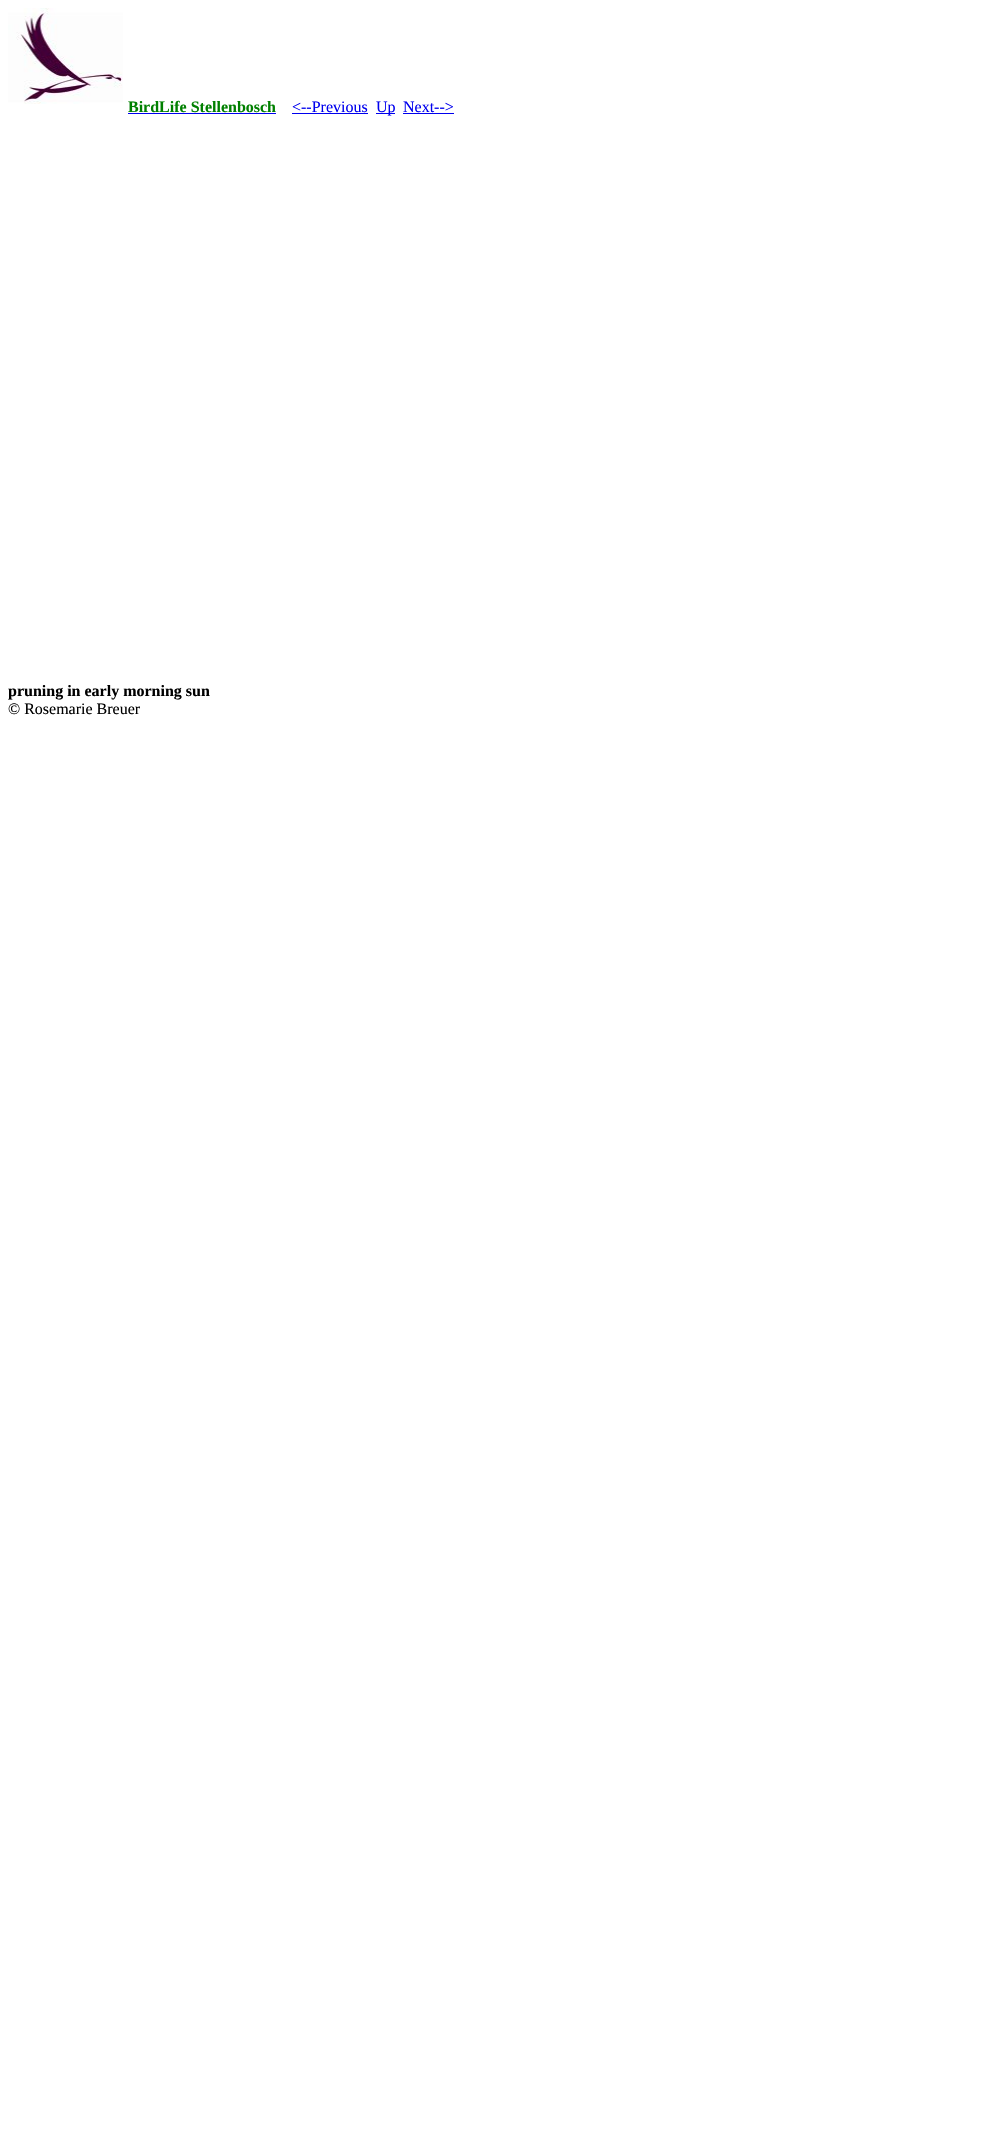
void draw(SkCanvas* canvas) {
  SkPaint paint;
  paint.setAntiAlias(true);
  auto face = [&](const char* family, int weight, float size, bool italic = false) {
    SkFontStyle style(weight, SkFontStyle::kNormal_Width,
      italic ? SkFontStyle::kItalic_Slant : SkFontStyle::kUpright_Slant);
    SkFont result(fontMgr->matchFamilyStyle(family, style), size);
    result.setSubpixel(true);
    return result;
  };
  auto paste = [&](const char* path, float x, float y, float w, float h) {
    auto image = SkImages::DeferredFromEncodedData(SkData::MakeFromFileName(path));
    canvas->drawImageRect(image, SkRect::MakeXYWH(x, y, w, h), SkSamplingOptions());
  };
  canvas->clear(0xffffffff);
  paste("img/1.png", 8, 8, 115, 96);
  {
    const struct { float x, y, w, h; SkColor color; } items[] = {
      {128, 113, 148, 1, 0xff0000ee},
      {292, 113, 76, 1, 0xff0000ee},
      {376, 113, 19, 1, 0xff0000ee},
      {403, 113, 51, 1, 0xff0000ee},
    };
    for (auto [x, y, w, h, color] : items) {
      paint.setColor(color);
      canvas->drawRect(SkRect::MakeXYWH(x, y, w, h), paint);
    }
  }
  auto f0 = face("Liberation Serif", 700, 16);
  paint.setColor(0xff008000);
  canvas->drawString("BirdLife Stellenbosch", 128, 112, f0, paint);
  auto f1 = face("Liberation Serif", 400, 16);
  paint.setColor(0xff0000ee);
  {
    const struct { const char* s; float x, y; } items[] = {
      {"<--Previous", 292, 112},
      {"Up", 376, 112},
      {"Next-->", 403, 112},
    };
    for (auto [s, x, y] : items) {
      canvas->drawString(s, x, y, f1, paint);
    }
  }
  paint.setColor(0xff000000);
  canvas->drawString("pruning in early morning sun", 8, 696, f0, paint);
  canvas->drawString("© Rosemarie Breuer", 8, 714, f1, paint);
}
